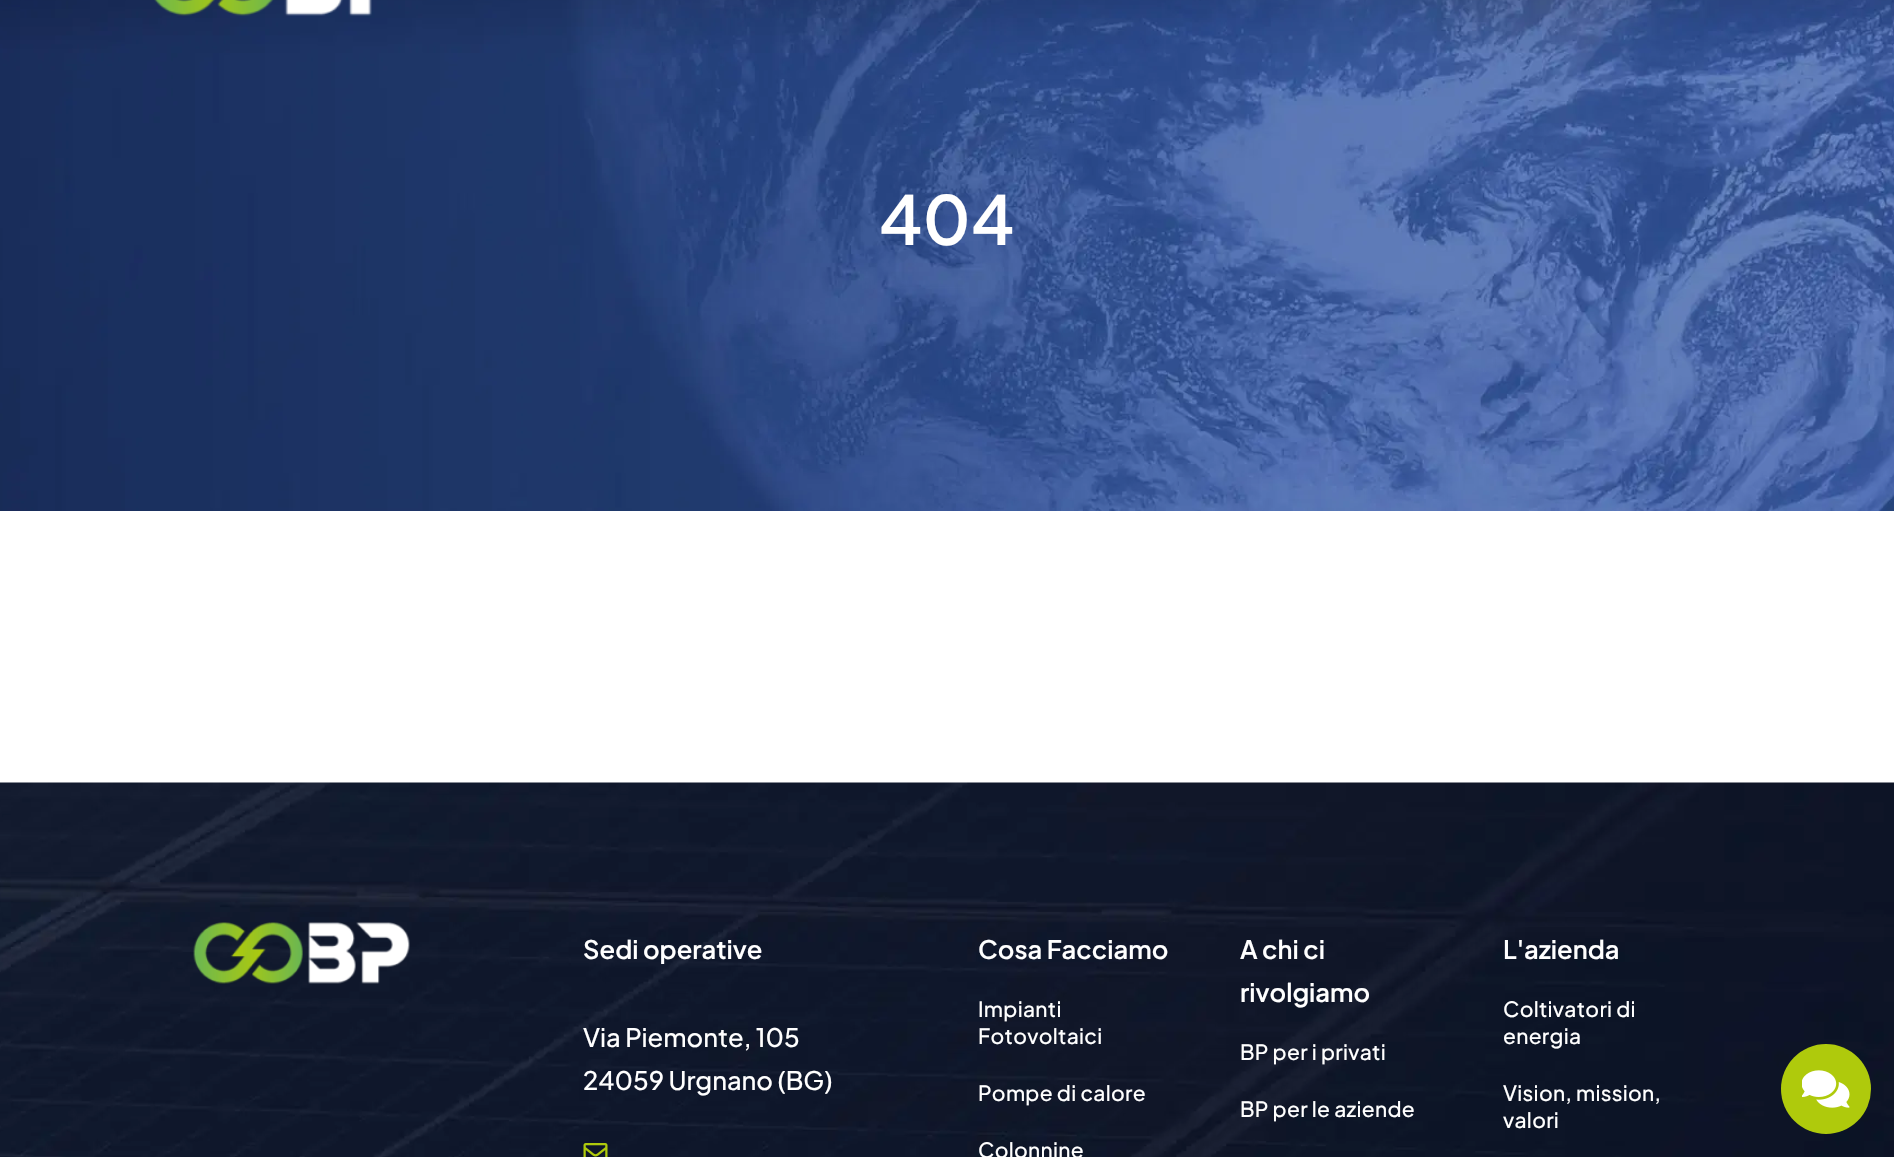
void draw(SkCanvas* canvas) {
  SkPaint paint;
  paint.setAntiAlias(true);
  auto face = [&](const char* family, int weight, float size, bool italic = false) {
    SkFontStyle style(weight, SkFontStyle::kNormal_Width,
      italic ? SkFontStyle::kItalic_Slant : SkFontStyle::kUpright_Slant);
    SkFont result(fontMgr->matchFamilyStyle(family, style), size);
    result.setSubpixel(true);
    return result;
  };
  auto writeSpaced = [&](const char* s, float x, float y, const SkFont& font, const SkPaint& ink, float letter, float word) {
    std::vector<SkGlyphID> glyphs(font.countText(s, strlen(s), SkTextEncoding::kUTF8));
    std::vector<float> xs(glyphs.size());
    font.textToGlyphs(s, strlen(s), SkTextEncoding::kUTF8, glyphs);
    font.getXPos(glyphs, xs, x);
    float extra = 0;
    for (size_t i = 0; i < glyphs.size(); i++) {
      xs[i] += extra;
      extra += letter + word * (glyphs[i] == font.unicharToGlyph(' '));
    }
    canvas->drawTextBlob(SkTextBlob::MakeFromPosHGlyphs(glyphs, xs, y, font), 0, 0, ink);
  };
  auto paste = [&](const char* path, float x, float y, float w, float h) {
    auto image = SkImages::DeferredFromEncodedData(SkData::MakeFromFileName(path));
    canvas->drawImageRect(image, SkRect::MakeXYWH(x, y, w, h), SkSamplingOptions());
  };
  canvas->clear(0xffffffff);
  paste("img/2.png", 0, 0, 1894, 511);
  paste("img/1.png", 154, 0, 218, 16);
  paste("img/3.png", 0, 782, 1894, 375);
  paste("img/4.png", 193, 922, 217, 62);
  paste("img/5.png", 583, 1143, 25, 14);
  paint.setColor(0xffafca0c);
  canvas->drawCircle(1826, 1089, 45, paint);
  paste("img/6.png", 1802, 1070, 48, 38);
  auto f0 = face("Plus Jakarta Sans", 600, 67.5f);
  paint.setColor(0xffffffff);
  canvas->drawString("404", 879, 245, f0, paint);
  auto f1 = face("Plus Jakarta Sans", 600, 25.5f);
  canvas->drawString("Sedi operative", 583, 959, f1, paint);
  auto f2 = face("Plus Jakarta Sans", 500, 25.5f);
  canvas->drawString("Via Piemonte, 105", 583, 1047, f2, paint);
  canvas->drawString("24059 Urgnano (BG)", 583, 1090, f2, paint);
  canvas->drawString("Cosa Facciamo", 978, 959, f1, paint);
  auto f3 = face("Plus Jakarta Sans", 500, 21);
  {
    const struct { const char* s; float x, y; } items[] = {
      {"Impianti", 978, 1017},
      {"Fotovoltaici", 978, 1044},
      {"Pompe di calore", 978, 1101},
      {"Colonnine", 978, 1158},
    };
    for (auto [s, x, y] : items) {
      writeSpaced(s, x, y, f3, paint, 0.3f, 0);
    }
  }
  canvas->drawString("A chi ci", 1240, 959, f1, paint);
  canvas->drawString("rivolgiamo", 1240, 1002, f1, paint);
  writeSpaced("BP per i privati", 1240, 1060, f3, paint, 0.3f, 0);
  writeSpaced("BP per le aziende", 1240, 1117, f3, paint, 0.3f, 0);
  canvas->drawString("L'azienda", 1503, 959, f1, paint);
  {
    const struct { const char* s; float x, y; } items[] = {
      {"Coltivatori di", 1503, 1017},
      {"energia", 1503, 1044},
      {"Vision, mission,", 1503, 1101},
      {"valori", 1503, 1128},
    };
    for (auto [s, x, y] : items) {
      writeSpaced(s, x, y, f3, paint, 0.3f, 0);
    }
  }
}
